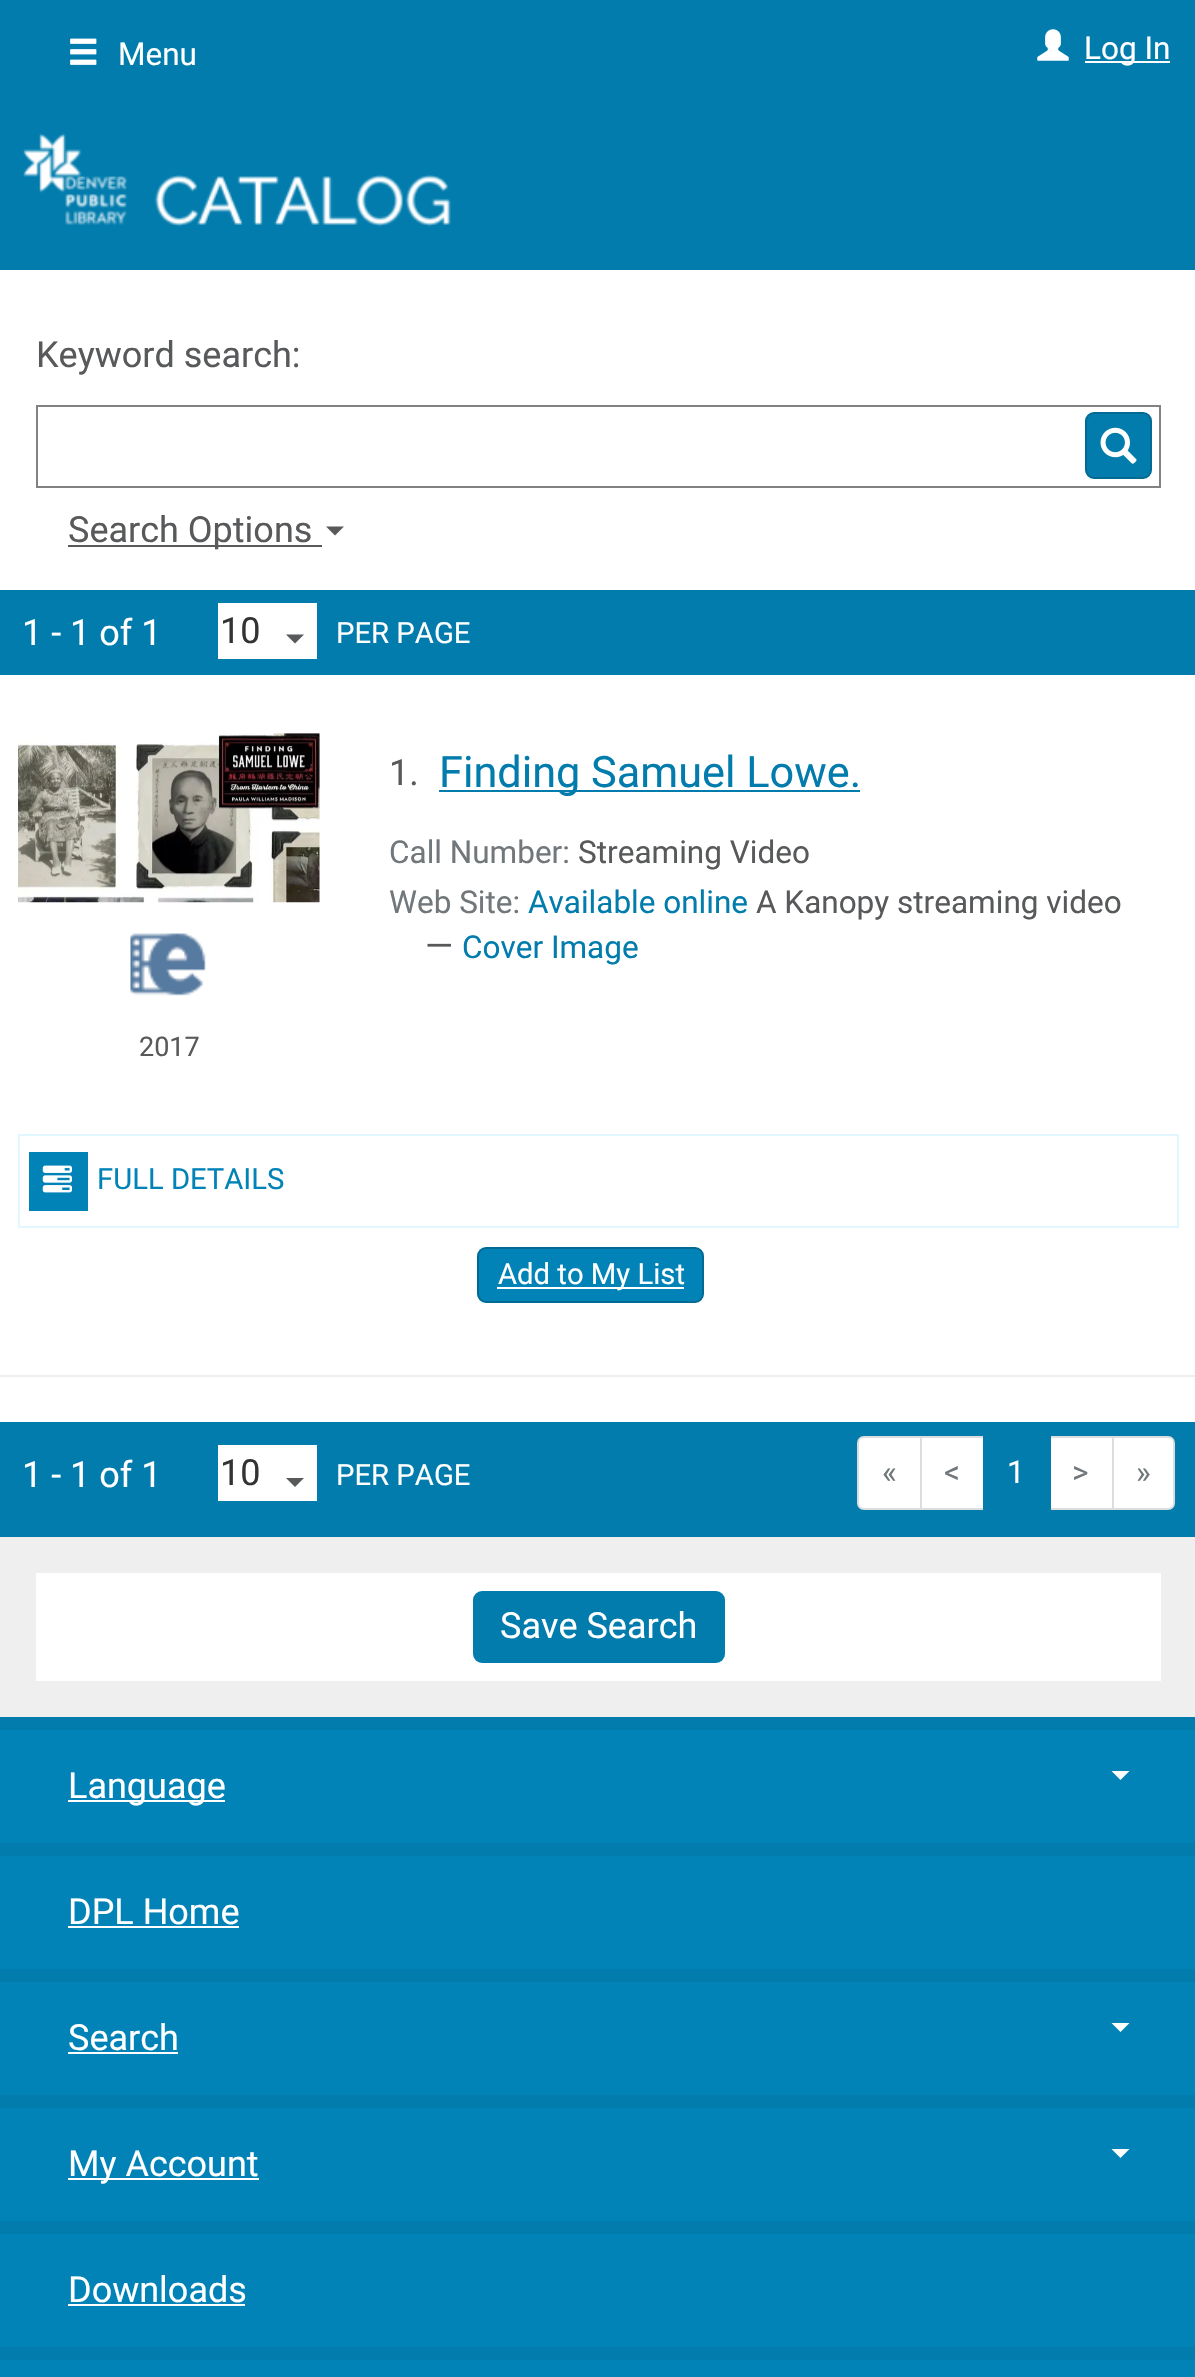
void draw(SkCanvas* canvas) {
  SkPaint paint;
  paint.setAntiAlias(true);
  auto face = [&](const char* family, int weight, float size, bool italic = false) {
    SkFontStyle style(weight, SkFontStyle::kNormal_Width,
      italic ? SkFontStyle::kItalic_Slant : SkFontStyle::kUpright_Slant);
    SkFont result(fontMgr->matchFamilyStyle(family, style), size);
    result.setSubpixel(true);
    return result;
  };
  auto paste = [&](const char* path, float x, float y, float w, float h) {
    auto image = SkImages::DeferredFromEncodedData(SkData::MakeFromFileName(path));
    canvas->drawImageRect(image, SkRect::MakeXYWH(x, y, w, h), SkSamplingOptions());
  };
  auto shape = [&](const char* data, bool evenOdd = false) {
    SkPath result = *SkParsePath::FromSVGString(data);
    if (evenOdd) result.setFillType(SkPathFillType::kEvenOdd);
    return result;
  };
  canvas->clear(0xff017cad);
  paste("img/1.png", 70, 38, 27, 27);
  paste("img/2.png", 1037, 29, 32, 32);
  paint.setColor(0xffffffff);
  canvas->drawRect(SkRect::MakeXYWH(1085, 61, 85, 2), paint);
  paste("img/3.png", 23, 133, 428, 94);
  paint.setColor(0xffefefef);
  canvas->drawRect(SkRect::MakeXYWH(0, 1537, 1195, 180), paint);
  paint.setColor(0xffffffff);
  canvas->drawRect(SkRect::MakeXYWH(0, 270, 1195, 1152), paint);
  paint.setStroke(true);
  paint.setStrokeWidth(2);
  paint.setColor(0xff808284);
  canvas->drawRect(SkRect::MakeXYWH(37, 406, 1123, 81), paint);
  paint.setStroke(false);
  paint.setColor(0xff017cad);
  canvas->drawRoundRect(SkRect::MakeXYWH(1086, 413, 65, 65), 8, 8, paint);
  paint.setStroke(true);
  paint.setColor(0xff016a94);
  canvas->drawRoundRect(SkRect::MakeXYWH(1086, 413, 65, 65), 8, 8, paint);
  paste("img/4.png", 1100, 427, 37, 37);
  paint.setStroke(false);
  paint.setColor(0xff58595b);
  canvas->drawRect(SkRect::MakeXYWH(68, 545, 254, 2), paint);
  canvas->drawPath(shape("M326 526.5H344L335 535.5Z"), paint);
  paint.setColor(0xff017cad);
  canvas->drawRect(SkRect::MakeXYWH(0, 590, 1195, 85), paint);
  paint.setColor(0xffffffff);
  canvas->drawRect(SkRect::MakeXYWH(218, 603, 99, 56), paint);
  paint.setColor(0xff58595b);
  canvas->drawPath(shape("M286 634.5H304L295 643.5Z"), paint);
  paint.setColor(0xff017cad);
  canvas->drawRect(SkRect::MakeXYWH(439, 790, 421, 2), paint);
  paste("img/5.png", 18, 733, 302, 170);
  paste("img/6.png", 130, 933, 76, 63);
  {
    const struct { float x, y, w, h; SkColor color; } items[] = {
      {18, 1226, 1161, 2, 0xffe1f6ff},
      {18, 1134, 1161, 2, 0xffe1f6ff},
      {1177, 1134, 2, 92, 0xffe1f6ff},
      {18, 1134, 2, 92, 0xffe1f6ff},
      {29, 1152, 59, 59, 0xff0183b7},
    };
    for (auto [x, y, w, h, color] : items) {
      paint.setColor(color);
      canvas->drawRect(SkRect::MakeXYWH(x, y, w, h), paint);
    }
  }
  paste("img/7.png", 42, 1165, 30, 28);
  canvas->drawRoundRect(SkRect::MakeXYWH(478, 1248, 225, 54), 8, 8, paint);
  paint.setStroke(true);
  paint.setColor(0xff016a94);
  canvas->drawRoundRect(SkRect::MakeXYWH(478, 1248, 225, 54), 8, 8, paint);
  paint.setStroke(false);
  {
    const struct { float x, y, w, h; SkColor color; } items[] = {
      {497, 1287, 187, 2, 0xffffffff},
      {0, 1375, 1195, 2, 0xffeeeeee},
      {218, 1445, 99, 56, 0xffffffff},
    };
    for (auto [x, y, w, h, color] : items) {
      paint.setColor(color);
      canvas->drawRect(SkRect::MakeXYWH(x, y, w, h), paint);
    }
  }
  paint.setColor(0xff58595b);
  canvas->drawPath(shape("M286 1478H304L295 1487Z"), paint);
  paint.setColor(0xffffffff);
  canvas->drawPath(shape("M864 1437H922V1509H864C860.5 1509 858 1506.5 858 1503V1443C858 1439.5 860.5 1437 864 1437Z"), paint);
  paint.setStroke(true);
  paint.setColor(0xffdddddd);
  canvas->drawPath(shape("M864 1437H922V1509H864C860.5 1509 858 1506.5 858 1503V1443C858 1439.5 860.5 1437 864 1437Z"), paint);
  paint.setStroke(false);
  paint.setColor(0xffffffff);
  canvas->drawRect(SkRect::MakeXYWH(922, 1438, 61, 70), paint);
  paint.setStroke(true);
  paint.setColor(0xffdddddd);
  canvas->drawRect(SkRect::MakeXYWH(921, 1437, 64, 72), paint);
  paint.setStroke(false);
  paint.setColor(0xffffffff);
  canvas->drawRect(SkRect::MakeXYWH(1050, 1437, 63, 72), paint);
  paint.setStroke(true);
  paint.setColor(0xffdddddd);
  canvas->drawRect(SkRect::MakeXYWH(1050, 1437, 63, 72), paint);
  paint.setStroke(false);
  paint.setColor(0xff017cad);
  canvas->drawRect(SkRect::MakeXYWH(983, 1436, 68, 74), paint);
  paint.setColor(0xffffffff);
  canvas->drawPath(shape("M1113 1437H1168C1171.5 1437 1174 1439.5 1174 1443V1503C1174 1506.5 1171.5 1509 1168 1509H1113Z"), paint);
  paint.setStroke(true);
  paint.setColor(0xffdddddd);
  canvas->drawPath(shape("M1113 1437H1168C1171.5 1437 1174 1439.5 1174 1443V1503C1174 1506.5 1171.5 1509 1168 1509H1113Z"), paint);
  paint.setStroke(false);
  paint.setColor(0xffffffff);
  canvas->drawRect(SkRect::MakeXYWH(36, 1573, 1125, 108), paint);
  paint.setColor(0xff017cad);
  canvas->drawRoundRect(SkRect::MakeXYWH(473, 1591, 252, 72), 9, 9, paint);
  paint.setColor(0xff0183b7);
  canvas->drawRect(SkRect::MakeXYWH(0, 1730, 1195, 113), paint);
  paint.setColor(0xffffffff);
  canvas->drawRect(SkRect::MakeXYWH(68, 1800, 157, 2), paint);
  canvas->drawPath(shape("M1111.5 1771H1129.5L1120.5 1780Z"), paint);
  {
    const struct { float x, y, w, h; SkColor color; } items[] = {
      {0, 1856, 1195, 113, 0xff0183b7},
      {68, 1926, 171, 2, 0xffffffff},
      {0, 1982, 1195, 113, 0xff0183b7},
      {68, 2052, 110, 2, 0xffffffff},
    };
    for (auto [x, y, w, h, color] : items) {
      paint.setColor(color);
      canvas->drawRect(SkRect::MakeXYWH(x, y, w, h), paint);
    }
  }
  canvas->drawPath(shape("M1111.5 2023H1129.5L1120.5 2032Z"), paint);
  paint.setColor(0xff0183b7);
  canvas->drawRect(SkRect::MakeXYWH(0, 2108, 1195, 113), paint);
  paint.setColor(0xffffffff);
  canvas->drawRect(SkRect::MakeXYWH(68, 2178, 191, 2), paint);
  canvas->drawPath(shape("M1111.5 2149H1129.5L1120.5 2158Z"), paint);
  {
    const struct { float x, y, w, h; SkColor color; } items[] = {
      {0, 2234, 1195, 113, 0xff0183b7},
      {68, 2304, 177, 2, 0xffffffff},
      {0, 2360, 1195, 17, 0xff0183b7},
    };
    for (auto [x, y, w, h, color] : items) {
      paint.setColor(color);
      canvas->drawRect(SkRect::MakeXYWH(x, y, w, h), paint);
    }
  }
  auto f0 = face("Roboto", 400, 31.5f);
  paint.setColor(0xffffffff);
  canvas->drawString("Menu", 118, 65, f0, paint);
  canvas->drawString("Log In", 1084, 59, f0, paint);
  auto f1 = face("Roboto", 400, 36);
  paint.setColor(0xff58595b);
  canvas->drawString("Keyword search:", 36, 367, f1, paint);
  canvas->drawString("Search Options", 68, 542, f1, paint);
  paint.setColor(0xffffffff);
  canvas->drawString("1 - 1 of 1", 22, 645, f1, paint);
  paint.setColor(0xff333333);
  canvas->drawString("10", 220, 643, f1, paint);
  auto f2 = face("Roboto", 400, 29.25f);
  paint.setColor(0xffffffff);
  canvas->drawString("PER PAGE", 336, 643, f2, paint);
  paint.setColor(0xff58595b);
  canvas->drawString("1.", 389, 785, f1, paint);
  auto f3 = face("Roboto", 400, 43.25f);
  paint.setColor(0xff017cad);
  canvas->drawString("Finding Samuel Lowe.", 439, 787, f3, paint);
  paint.setColor(0xff71777a);
  canvas->drawString("Call Number:", 389, 863, f0, paint);
  paint.setColor(0xff58595b);
  canvas->drawString("Streaming Video", 578, 863, f0, paint);
  paint.setColor(0xff71777a);
  canvas->drawString("Web Site:", 389, 913, f0, paint);
  paint.setColor(0xff017cad);
  canvas->drawString("Available online", 528, 913, f0, paint);
  paint.setColor(0xff58595b);
  canvas->drawString("A Kanopy streaming video", 756, 913, f0, paint);
  canvas->drawString("—", 425, 958, f1, paint);
  paint.setColor(0xff017cad);
  canvas->drawString("Cover Image", 462, 958, f0, paint);
  auto f4 = face("Roboto", 400, 27);
  paint.setColor(0xff58595b);
  canvas->drawString("2017", 139, 1056, f4, paint);
  paint.setColor(0xff0183b7);
  canvas->drawString("FULL DETAILS", 97, 1189, f2, paint);
  paint.setColor(0xffffffff);
  canvas->drawString("Add to My List", 498, 1284, f2, paint);
  canvas->drawString("1 - 1 of 1", 22, 1487, f1, paint);
  paint.setColor(0xff333333);
  canvas->drawString("10", 220, 1485, f1, paint);
  paint.setColor(0xffffffff);
  canvas->drawString("PER PAGE", 336, 1485, f2, paint);
  paint.setColor(0xff71777a);
  canvas->drawString("«", 882, 1483, f0, paint);
  canvas->drawString("<", 944, 1483, f0, paint);
  paint.setColor(0xffffffff);
  canvas->drawString("1", 1007, 1483, f0, paint);
  paint.setColor(0xff71777a);
  canvas->drawString(">", 1072, 1483, f0, paint);
  canvas->drawString("»", 1136, 1483, f0, paint);
  paint.setColor(0xffffffff);
  {
    const struct { const char* s; float x, y; } items[] = {
      {"Save Search", 500, 1638},
      {"Language", 68, 1798},
      {"DPL Home", 68, 1924},
      {"Search", 68, 2050},
      {"My Account", 68, 2176},
      {"Downloads", 68, 2302},
    };
    for (auto [s, x, y] : items) {
      canvas->drawString(s, x, y, f1, paint);
    }
  }
}
